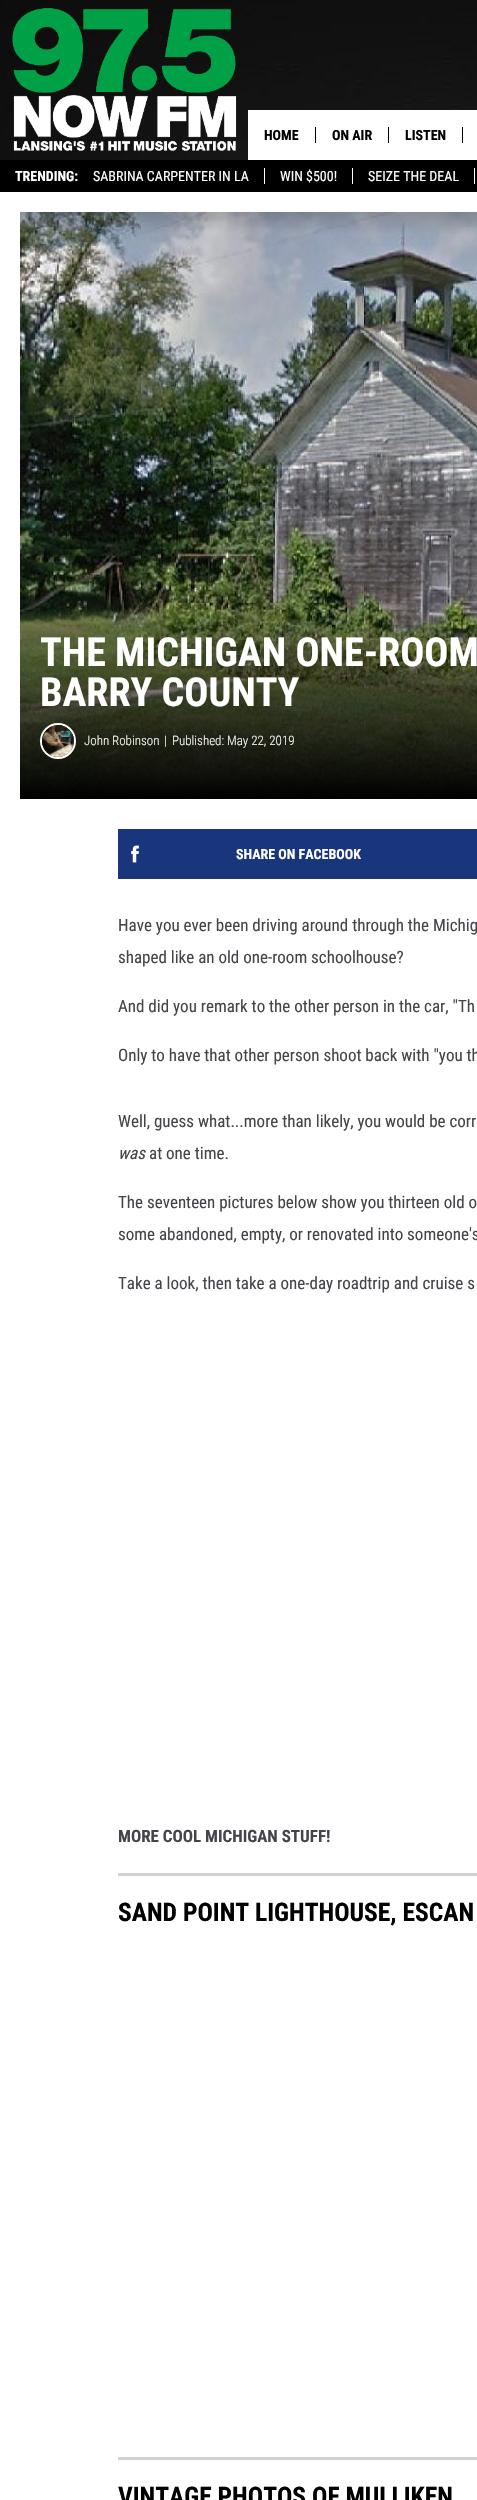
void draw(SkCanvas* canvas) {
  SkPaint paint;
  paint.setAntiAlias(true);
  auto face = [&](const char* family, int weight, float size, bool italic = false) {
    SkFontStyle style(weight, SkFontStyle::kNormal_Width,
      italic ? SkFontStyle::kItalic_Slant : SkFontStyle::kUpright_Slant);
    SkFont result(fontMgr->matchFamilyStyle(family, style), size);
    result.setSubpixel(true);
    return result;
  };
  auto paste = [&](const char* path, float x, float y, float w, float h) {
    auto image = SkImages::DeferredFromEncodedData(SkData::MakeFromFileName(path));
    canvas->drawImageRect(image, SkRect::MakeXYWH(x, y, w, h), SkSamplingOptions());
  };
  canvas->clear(0xffffffff);
  paste("img/1.png", 0, 0, 477, 160);
  paste("img/2.png", 12, 8, 225, 143);
  {
    const struct { float x, y, w, h; SkColor color; } items[] = {
      {248, 110, 229, 50, 0xffffffff},
      {315, 127, 1, 16, 0xff000000},
      {388, 127, 1, 16, 0xff000000},
      {462, 127, 1, 16, 0xff000000},
      {0, 160, 477, 32, 0xff000000},
      {264, 168, 1, 16, 0xffffffff},
      {352, 168, 1, 16, 0xffffffff},
      {474, 168, 1, 16, 0xffffffff},
    };
    for (auto [x, y, w, h, color] : items) {
      paint.setColor(color);
      canvas->drawRect(SkRect::MakeXYWH(x, y, w, h), paint);
    }
  }
  paste("img/3.png", 20, 212, 457, 586);
  {
    const SkColor colors[] = {0x00000000, 0xff000000};
    const float stops[] = {0, 1};
    const SkPoint ends[] = {{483, 605}, {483, 799}};
    paint.setShader(SkGradientShader::MakeLinear(ends, colors, stops, 2, SkTileMode::kClamp));
    paint.setAlpha(255);
  }
  canvas->drawRect(SkRect::MakeXYWH(20, 609, 457, 190), paint);
  paint.setStroke(true);
  paint.setStrokeWidth(2);
  paint.setShader(nullptr);
  paint.setColor(0xffffffff);
  canvas->drawCircle(58, 741, 17, paint);
  paste("img/4.png", 42, 725, 32, 32);
  paint.setStroke(false);
  paint.setColor(0xff19367c);
  canvas->drawRect(SkRect::MakeXYWH(118, 829, 359, 50), paint);
  paste("img/5.png", 131, 845, 8, 18);
  paint.setColor(0xffd1d0d2);
  canvas->drawRect(SkRect::MakeXYWH(118, 1873, 359, 3), paint);
  canvas->drawRect(SkRect::MakeXYWH(118, 2457, 359, 3), paint);
  auto f0 = face("Roboto Condensed", 700, 14);
  paint.setColor(0xff000000);
  {
    const struct { const char* s; float x, y; } items[] = {
      {"HOME", 264, 140},
      {"ON AIR", 332, 140},
      {"LISTEN", 405, 140},
    };
    for (auto [s, x, y] : items) {
      canvas->drawString(s, x, y, f0, paint);
    }
  }
  paint.setColor(0xffffffff);
  canvas->drawString("TRENDING:", 15, 181, f0, paint);
  auto f1 = face("Roboto Condensed", 400, 14);
  {
    const struct { const char* s; float x, y; } items[] = {
      {"SABRINA CARPENTER IN LA", 93, 181},
      {"WIN $500!", 280, 181},
      {"SEIZE THE DEAL", 368, 181},
    };
    for (auto [s, x, y] : items) {
      canvas->drawString(s, x, y, f1, paint);
    }
  }
  auto f2 = face("Roboto Condensed", 700, 40);
  canvas->drawString("THE MICHIGAN ONE-ROOM", 40, 666, f2, paint);
  canvas->drawString("BARRY COUNTY", 40, 706, f2, paint);
  auto f3 = face("Roboto Condensed", 300, 13);
  {
    const struct { const char* s; float x, y; } items[] = {
      {"John Robinson", 84, 745},
      {"|", 164, 745},
      {"Published: May 22, 2019", 172, 745},
    };
    for (auto [s, x, y] : items) {
      canvas->drawString(s, x, y, f3, paint);
    }
  }
  canvas->drawString("SHARE ON FACEBOOK", 236, 859, f0, paint);
  auto f4 = face("Roboto Condensed", 400, 17);
  paint.setColor(0xff45444a);
  {
    const struct { const char* s; float x, y; } items[] = {
      {"Have you ever been driving around through the Michig", 118, 931},
      {"shaped like an old one-room schoolhouse?", 118, 963},
      {"And did you remark to the other person in the car, \"Th", 118, 1012},
      {"Only to have that other person shoot back with \"you th", 118, 1061},
      {"Well, guess what...more than likely, you would be corr", 118, 1127},
    };
    for (auto [s, x, y] : items) {
      canvas->drawString(s, x, y, f4, paint);
    }
  }
  auto f5 = face("Roboto Condensed", 400, 17, true);
  canvas->drawString("was", 118, 1159, f5, paint);
  {
    const struct { const char* s; float x, y; } items[] = {
      {"at one time.", 149, 1159},
      {"The seventeen pictures below show you thirteen old o", 118, 1208},
      {"some abandoned, empty, or renovated into someone's", 118, 1240},
      {"Take a look, then take a one-day roadtrip and cruise s", 118, 1289},
    };
    for (auto [s, x, y] : items) {
      canvas->drawString(s, x, y, f4, paint);
    }
  }
  auto f6 = face("Roboto Condensed", 700, 17);
  canvas->drawString("MORE COOL MICHIGAN STUFF!", 118, 1842, f6, paint);
  auto f7 = face("Roboto Condensed", 700, 25.5f);
  paint.setColor(0xff000000);
  canvas->drawString("SAND POINT LIGHTHOUSE, ESCAN", 118, 1921, f7, paint);
  canvas->drawString("VINTAGE PHOTOS OF MULLIKEN", 118, 2505, f7, paint);
}
